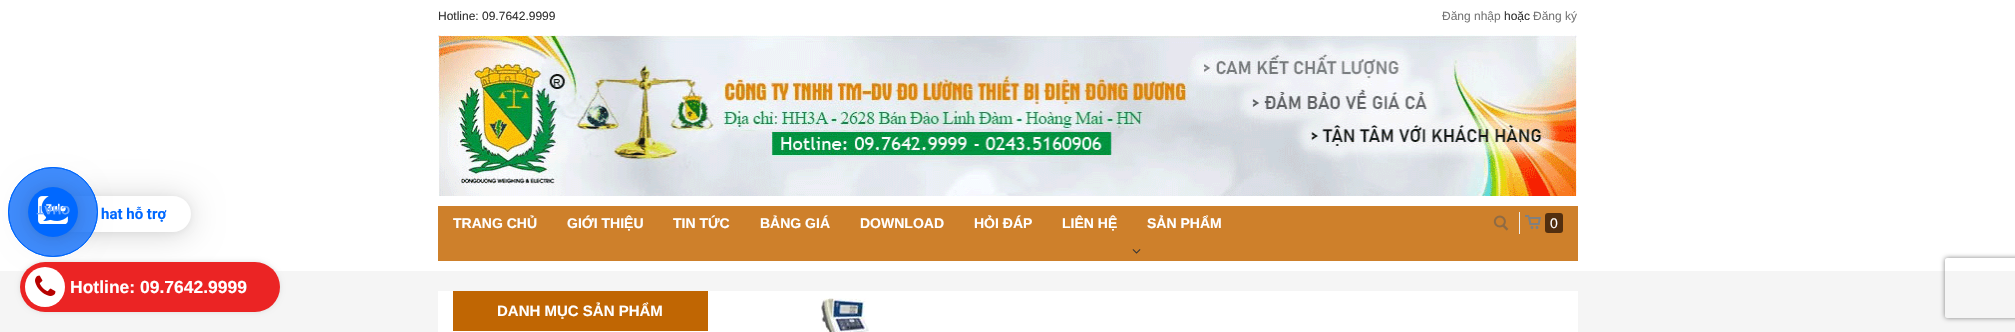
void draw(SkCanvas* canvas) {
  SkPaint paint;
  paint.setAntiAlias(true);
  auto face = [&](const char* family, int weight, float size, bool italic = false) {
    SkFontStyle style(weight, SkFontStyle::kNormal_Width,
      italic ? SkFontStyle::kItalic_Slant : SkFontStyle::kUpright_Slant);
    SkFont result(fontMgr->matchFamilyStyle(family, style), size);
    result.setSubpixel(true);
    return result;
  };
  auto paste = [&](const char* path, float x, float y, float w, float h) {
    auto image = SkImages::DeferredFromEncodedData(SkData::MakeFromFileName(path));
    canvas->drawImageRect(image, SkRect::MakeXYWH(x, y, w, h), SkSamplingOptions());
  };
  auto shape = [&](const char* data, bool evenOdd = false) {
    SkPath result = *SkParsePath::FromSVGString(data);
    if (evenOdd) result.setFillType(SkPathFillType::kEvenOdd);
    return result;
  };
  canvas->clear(0xfff5f5f5);
  paint.setColor(0xffffffff);
  canvas->drawRect(SkRect::MakeXYWH(0, 0, 2015, 271), paint);
  paint.setColor(0x29000000);
  paint.setMaskFilter(SkMaskFilter::MakeBlur(kNormal_SkBlurStyle, 16));
  canvas->drawRoundRect(SkRect::MakeXYWH(66, 198, 125, 36), 18, 18, paint);
  paint.setMaskFilter(nullptr);
  paint.setColor(0x0f000000);
  paint.setMaskFilter(SkMaskFilter::MakeBlur(kNormal_SkBlurStyle, 3));
  canvas->drawRoundRect(SkRect::MakeXYWH(66, 197, 125, 36), 18, 18, paint);
  paint.setMaskFilter(nullptr);
  paint.setColor(0xffffffff);
  canvas->drawPath(shape("M66 196H173C183 196 191 204 191 214C191 224 183 232 173 232H66Z"), paint);
  paint.setColor(0x800068ff);
  canvas->drawCircle(53, 212, 44.5f, paint);
  paint.setStroke(true);
  paint.setStrokeWidth(1);
  paint.setColor(0xff0068ff);
  canvas->drawCircle(53, 212, 44.5f, paint);
  paint.setStroke(false);
  paint.setColor(0x800068ff);
  canvas->drawCircle(53, 212, 44.5f, paint);
  paint.setStroke(true);
  paint.setColor(0xff0068ff);
  canvas->drawCircle(53, 212, 44.5f, paint);
  paint.setStroke(false);
  paint.setColor(0x29000000);
  paint.setMaskFilter(SkMaskFilter::MakeBlur(kNormal_SkBlurStyle, 16));
  canvas->drawRoundRect(SkRect::MakeXYWH(28, 189, 50, 50), 25, 25, paint);
  paint.setMaskFilter(nullptr);
  paint.setColor(0x0f000000);
  paint.setMaskFilter(SkMaskFilter::MakeBlur(kNormal_SkBlurStyle, 3));
  canvas->drawRoundRect(SkRect::MakeXYWH(28, 188, 50, 50), 25, 25, paint);
  paint.setMaskFilter(nullptr);
  paint.setColor(0xff0068ff);
  canvas->drawCircle(53, 212, 25, paint);
  paste("img/1.png", 38, 196, 30, 28);
  paste("img/2.png", 438, 35, 1139, 161);
  paint.setColor(0xffce802b);
  canvas->drawRect(SkRect::MakeXYWH(438, 206, 1140, 55), paint);
  paste("img/3.png", 1132, 249, 9, 5);
  paste("img/4.png", 1493, 215, 16, 16);
  paint.setColor(0xffeeeeee);
  canvas->drawRect(SkRect::MakeXYWH(1519, 212, 1, 22), paint);
  paste("img/5.png", 1525, 215, 16, 14);
  paint.setColor(0xff522f0f);
  canvas->drawRoundRect(SkRect::MakeXYWH(1545, 213, 18, 20), 3, 3, paint);
  paint.setColor(0xffdddddd);
  paint.setMaskFilter(SkMaskFilter::MakeBlur(kNormal_SkBlurStyle, 2.5f));
  canvas->drawRoundRect(SkRect::MakeXYWH(20, 262, 260, 50), 25, 25, paint);
  paint.setMaskFilter(nullptr);
  paint.setColor(0xffeb2424);
  canvas->drawRoundRect(SkRect::MakeXYWH(20, 262, 260, 50), 25, 25, paint);
  paint.setColor(0xffffffff);
  canvas->drawCircle(45, 287, 20, paint);
  paste("img/6.png", 35, 275, 21, 21);
  canvas->drawRect(SkRect::MakeXYWH(438, 291, 1140, 41), paint);
  paint.setColor(0xffc06603);
  canvas->drawRect(SkRect::MakeXYWH(453, 291, 255, 40), paint);
  paste("img/7.png", 821, 298, 48, 34);
  canvas->save();
  canvas->clipPath(shape("M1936 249H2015V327H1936ZM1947 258H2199C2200 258 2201 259 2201 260V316C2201 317 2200 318 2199 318H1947C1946 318 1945 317 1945 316V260C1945 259 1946 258 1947 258Z", true), true);
  paint.setColor(0xff808080);
  paint.setMaskFilter(SkMaskFilter::MakeBlur(kNormal_SkBlurStyle, 2.5f));
  canvas->drawRoundRect(SkRect::MakeXYWH(1945, 258, 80, 60), 2, 2, paint);
  paint.setMaskFilter(nullptr);
  canvas->restore();
  auto f0 = face("Liberation Sans", 400, 12);
  paint.setColor(0xff333333);
  canvas->drawString("Hotline: 09.7642.9999", 438, 20, f0, paint);
  paint.setColor(0xff777777);
  canvas->drawString("Đăng nhập", 1442, 20, f0, paint);
  paint.setColor(0xff333333);
  canvas->drawString("hoặc", 1504, 20, f0, paint);
  paint.setColor(0xff777777);
  canvas->drawString("Đăng ký", 1533, 20, f0, paint);
  auto f1 = face("Liberation Sans", 700, 12);
  paint.setColor(0xff6ba7ff);
  canvas->save();
  canvas->rotate(180, 70, 206);
  canvas->drawString("CHAT", 70, 206, f1, paint);
  canvas->restore();
  auto f2 = face("Roboto", 700, 15);
  paint.setColor(0xff0068ff);
  canvas->drawString("hat hỗ trợ", 101, 219, f2, paint);
  auto f3 = face("Liberation Sans", 700, 14);
  paint.setColor(0xffffffff);
  {
    const struct { const char* s; float x, y; } items[] = {
      {"TRANG CHỦ", 453, 228},
      {"GIỚI THIỆU", 567, 228},
      {"TIN TỨC", 673, 228},
      {"BẢNG GIÁ", 760, 228},
      {"DOWNLOAD", 860, 228},
      {"HỎI ĐÁP", 974, 228},
      {"LIÊN HỆ", 1062, 228},
      {"SẢN PHẨM", 1147, 228},
    };
    for (auto [s, x, y] : items) {
      canvas->drawString(s, x, y, f3, paint);
    }
  }
  auto f4 = face("Liberation Sans", 400, 14);
  canvas->drawString("0", 1550, 228, f4, paint);
  auto f5 = face("Liberation Sans", 700, 17.5f);
  canvas->drawString("Hotline: 09.7642.9999", 70, 293, f5, paint);
  auto f6 = face("Liberation Sans", 700, 15);
  canvas->drawString("DANH MỤC SẢN PHẨM", 497, 316, f6, paint);
}
